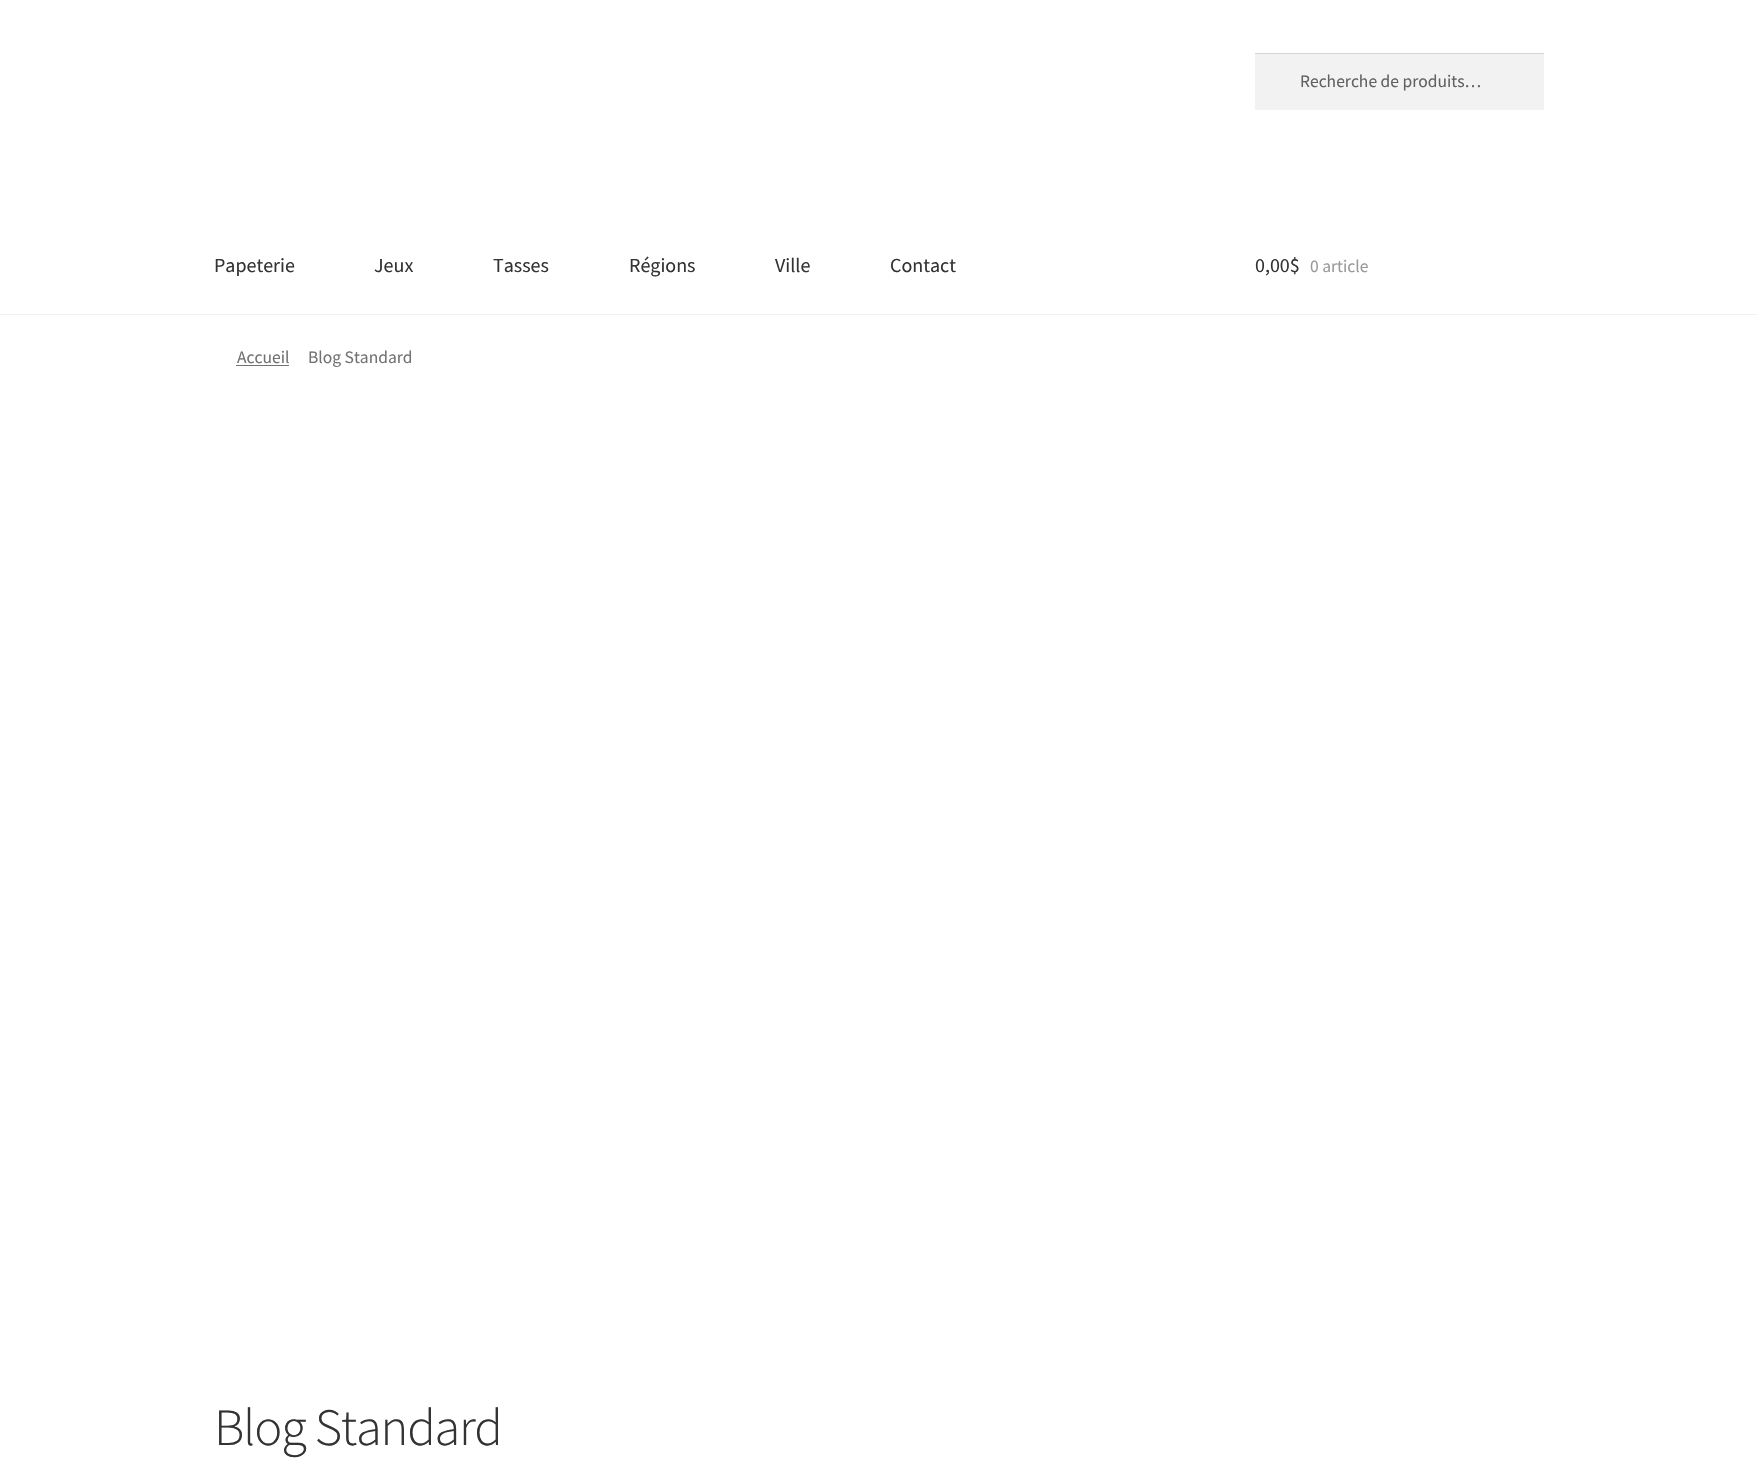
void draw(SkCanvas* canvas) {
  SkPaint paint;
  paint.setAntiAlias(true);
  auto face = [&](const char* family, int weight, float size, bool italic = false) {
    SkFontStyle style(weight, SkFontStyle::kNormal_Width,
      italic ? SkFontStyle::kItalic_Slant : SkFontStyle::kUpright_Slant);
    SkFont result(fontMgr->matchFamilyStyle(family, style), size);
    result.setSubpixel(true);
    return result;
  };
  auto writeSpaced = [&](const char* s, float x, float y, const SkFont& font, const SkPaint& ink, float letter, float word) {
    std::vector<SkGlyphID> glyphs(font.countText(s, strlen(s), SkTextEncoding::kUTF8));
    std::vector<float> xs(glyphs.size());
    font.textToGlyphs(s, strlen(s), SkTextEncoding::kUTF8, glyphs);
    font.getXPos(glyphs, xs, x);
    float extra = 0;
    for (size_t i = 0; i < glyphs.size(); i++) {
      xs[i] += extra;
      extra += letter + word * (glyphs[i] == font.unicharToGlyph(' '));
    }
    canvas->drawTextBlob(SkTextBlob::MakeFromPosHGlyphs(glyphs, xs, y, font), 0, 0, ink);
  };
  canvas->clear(0xffffffff);
  {
    const struct { float x, y, w, h; SkColor color; } items[] = {
      {0, 314, 1757, 1, 0xfff0f0f0},
      {1255, 54, 289, 56, 0xfff2f2f2},
      {1255, 53, 289, 1, 0xffd4d4d4},
      {236, 365, 53, 1, 0xff727272},
    };
    for (auto [x, y, w, h, color] : items) {
      paint.setColor(color);
      canvas->drawRect(SkRect::MakeXYWH(x, y, w, h), paint);
    }
  }
  auto f0 = face("Source Sans Pro", 400, 17.5f);
  paint.setColor(0xff616161);
  canvas->drawString("Recherche de produits…", 1300, 87, f0, paint);
  auto f1 = face("Source Sans Pro", 400, 20);
  paint.setColor(0xff333333);
  {
    const struct { const char* s; float x, y; } items[] = {
      {"Papeterie", 214, 272},
      {"Jeux", 374, 272},
      {"Tasses", 493, 272},
      {"Régions", 629, 272},
      {"Ville", 775, 272},
      {"Contact", 890, 272},
      {"0,00$", 1255, 272},
    };
    for (auto [s, x, y] : items) {
      canvas->drawString(s, x, y, f1, paint);
    }
  }
  paint.setColor(0xff999999);
  canvas->drawString("0 article", 1310, 272, f0, paint);
  paint.setColor(0xff727272);
  canvas->drawString("Accueil", 237, 363, f0, paint);
  canvas->drawString("Blog Standard", 308, 363, f0, paint);
  auto f2 = face("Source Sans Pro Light", 300, 52.5f);
  paint.setColor(0xff333333);
  writeSpaced("Blog Standard", 214, 1445, f2, paint, -1.25f, 0);
}
